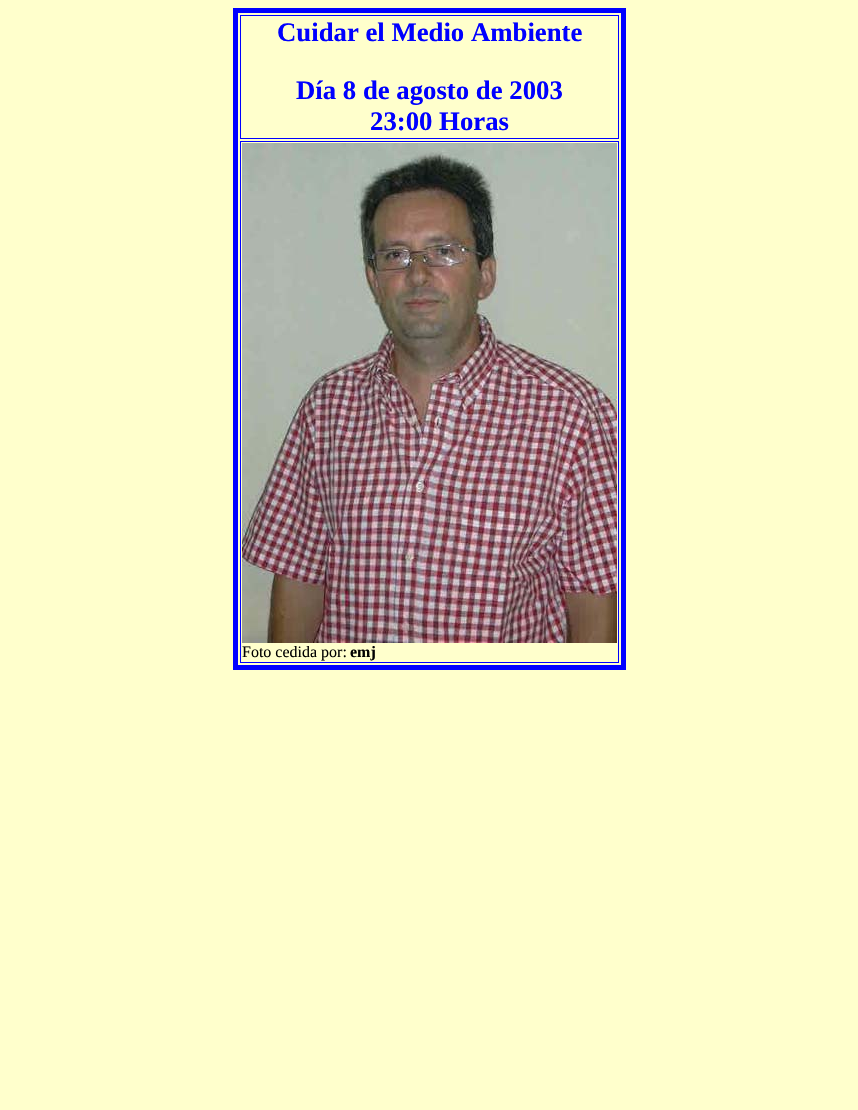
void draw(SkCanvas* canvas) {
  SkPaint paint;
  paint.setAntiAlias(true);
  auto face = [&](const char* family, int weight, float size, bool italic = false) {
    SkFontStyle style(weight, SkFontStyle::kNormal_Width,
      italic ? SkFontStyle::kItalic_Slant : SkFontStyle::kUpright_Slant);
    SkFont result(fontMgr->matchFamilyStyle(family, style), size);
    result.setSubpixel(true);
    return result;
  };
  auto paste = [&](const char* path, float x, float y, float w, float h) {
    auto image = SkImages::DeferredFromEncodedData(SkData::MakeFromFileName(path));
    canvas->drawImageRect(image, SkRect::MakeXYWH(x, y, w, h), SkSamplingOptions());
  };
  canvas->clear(0xffffffcc);
  paint.setStroke(true);
  paint.setStrokeWidth(5);
  paint.setColor(0xff0000ff);
  canvas->drawRect(SkRect::MakeXYWH(235.5f, 10.5f, 388, 657), paint);
  paint.setStrokeWidth(1);
  canvas->drawRect(SkRect::MakeXYWH(240.5f, 15.5f, 378, 123), paint);
  canvas->drawRect(SkRect::MakeXYWH(240.5f, 141.5f, 378, 521), paint);
  paste("img/1.png", 242, 143, 375, 500);
  auto f0 = face("Liberation Serif", 700, 26.75f);
  paint.setStroke(false);
  {
    const struct { const char* s; float x, y; } items[] = {
      {"Cuidar el Medio Ambiente", 277, 41},
      {"Día 8 de agosto de 2003", 296, 99},
      {"23:00 Horas", 370, 130},
    };
    for (auto [s, x, y] : items) {
      canvas->drawString(s, x, y, f0, paint);
    }
  }
  auto f1 = face("Liberation Serif", 400, 16);
  paint.setColor(0xff000000);
  canvas->drawString("Foto cedida por:", 242, 657, f1, paint);
  auto f2 = face("Liberation Serif", 700, 16);
  canvas->drawString("emj", 350, 657, f2, paint);
}
